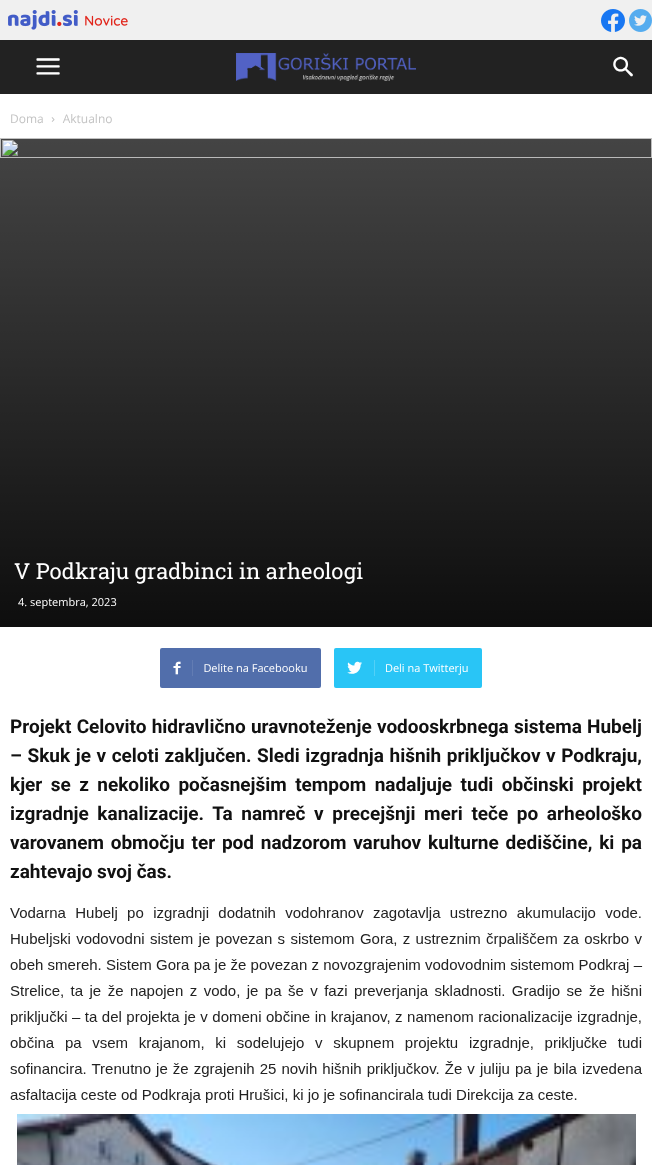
void draw(SkCanvas* canvas) {
  SkPaint paint;
  paint.setAntiAlias(true);
  auto paste = [&](const char* path, float x, float y, float w, float h) {
    auto image = SkImages::DeferredFromEncodedData(SkData::MakeFromFileName(path));
    canvas->drawImageRect(image, SkRect::MakeXYWH(x, y, w, h), SkSamplingOptions());
  };
  canvas->clear(0xffffffff);
  paint.setColor(0xfff0f0f0);
  canvas->drawRect(SkRect::MakeXYWH(0, 0, 652, 40), paint);
  paste("img/1.png", 8, 10, 120, 20);
  paste("img/2.png", 601, 9, 24, 23);
  paste("img/3.png", 629, 9, 23, 23);
  paste("img/4.png", 0, 40, 652, 1125);
}
